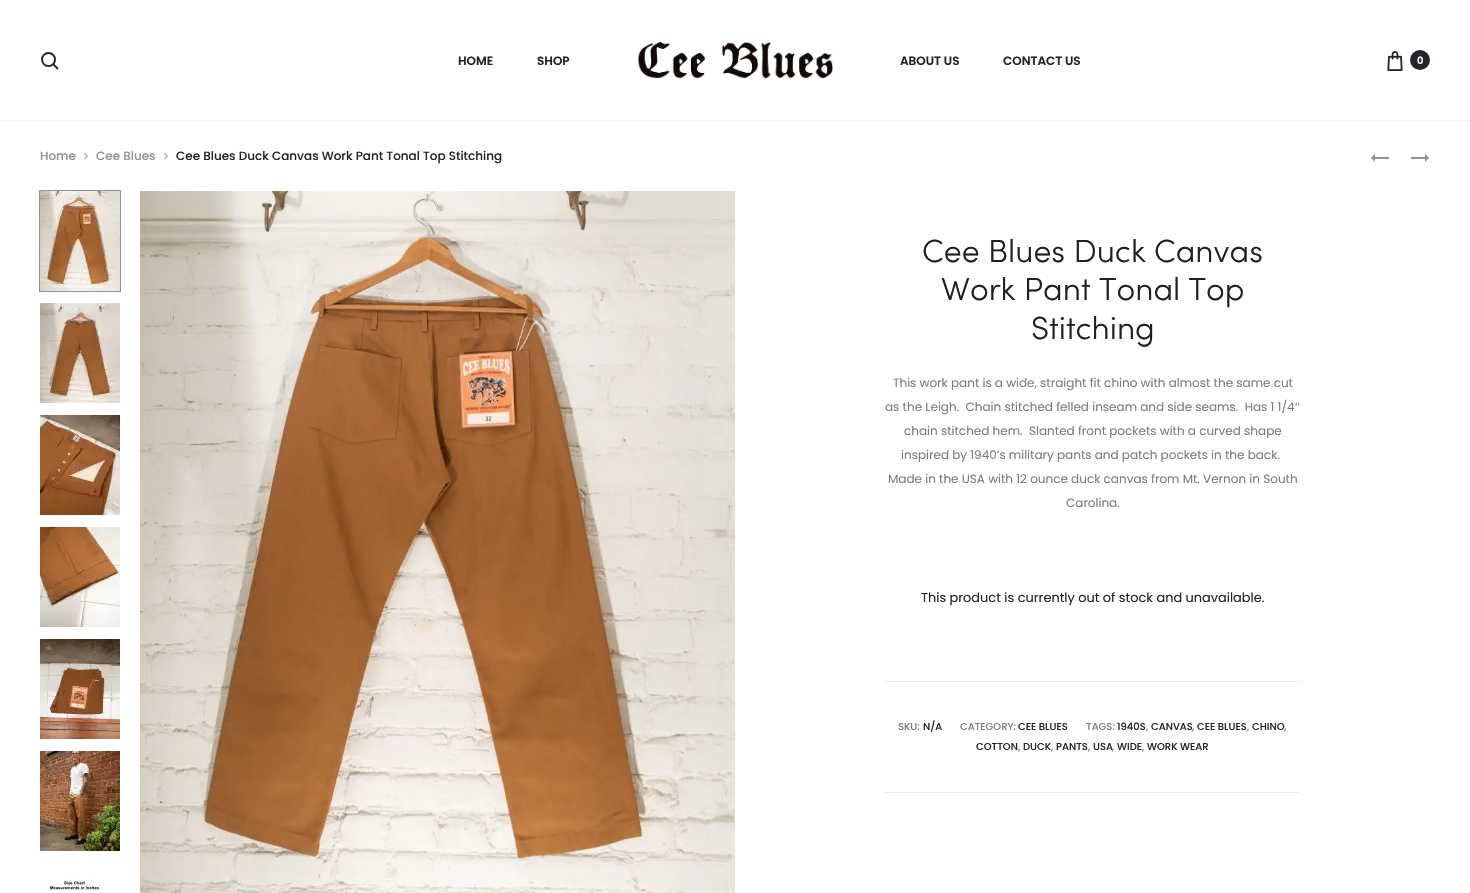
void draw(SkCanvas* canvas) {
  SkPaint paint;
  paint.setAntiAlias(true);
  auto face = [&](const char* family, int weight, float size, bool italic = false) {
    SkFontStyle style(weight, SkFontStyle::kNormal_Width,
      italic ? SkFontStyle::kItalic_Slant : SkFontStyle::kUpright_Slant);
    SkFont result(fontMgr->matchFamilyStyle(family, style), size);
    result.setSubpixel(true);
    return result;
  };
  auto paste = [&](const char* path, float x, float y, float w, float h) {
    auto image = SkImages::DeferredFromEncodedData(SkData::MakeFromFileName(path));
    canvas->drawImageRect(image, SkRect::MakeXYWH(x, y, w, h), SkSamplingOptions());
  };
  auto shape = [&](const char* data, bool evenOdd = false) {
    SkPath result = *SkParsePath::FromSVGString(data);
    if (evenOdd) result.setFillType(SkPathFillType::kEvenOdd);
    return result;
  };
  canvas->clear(0xffffffff);
  paint.setColor(0xfff1f2f4);
  canvas->drawRect(SkRect::MakeXYWH(0, 120, 1470, 1), paint);
  paint.setStroke(true);
  paint.setStrokeWidth(2);
  paint.setColor(0xff23232c);
  canvas->drawCircle(48.5f, 59.5f, 6.5f, paint);
  canvas->drawPath(shape("M53 64L58 69"), paint);
  paste("img/1.png", 637, 41, 196, 38);
  paste("img/2.png", 1387, 51, 16, 20);
  paint.setStroke(false);
  canvas->drawCircle(1420, 60, 10, paint);
  paste("img/3.png", 84, 152, 4, 8);
  paste("img/3.png", 164, 152, 4, 8);
  paste("img/4.png", 1371, 154, 18, 8);
  paste("img/5.png", 1411, 154, 18, 8);
  paint.setStroke(true);
  paint.setStrokeWidth(1);
  paint.setColor(0xff909097);
  canvas->drawRect(SkRect::MakeXYWH(39.5f, 190.5f, 81, 101), paint);
  paste("img/6.png", 40, 191, 80, 100);
  paste("img/7.png", 40, 303, 80, 100);
  paste("img/8.png", 40, 415, 80, 100);
  paste("img/9.png", 40, 527, 80, 100);
  paste("img/10.png", 40, 639, 80, 100);
  paste("img/11.png", 40, 751, 80, 100);
  paste("img/12.png", 48, 879, 52, 12);
  paste("img/13.png", 140, 191, 595, 702);
  paint.setStroke(false);
  paint.setColor(0xffeaebee);
  canvas->drawRect(SkRect::MakeXYWH(885, 681, 415, 1), paint);
  canvas->drawRect(SkRect::MakeXYWH(885, 792, 415, 1), paint);
  auto f0 = face("Poppins", 600, 12);
  paint.setColor(0xff23232c);
  {
    const struct { const char* s; float x, y; } items[] = {
      {"HOME", 458, 65},
      {"SHOP", 537, 65},
      {"ABOUT US", 900, 65},
      {"CONTACT US", 1003, 65},
    };
    for (auto [s, x, y] : items) {
      canvas->drawString(s, x, y, f0, paint);
    }
  }
  auto f1 = face("Poppins", 600, 10);
  paint.setColor(0xffffffff);
  canvas->drawString("0", 1417, 64, f1, paint);
  auto f2 = face("Poppins", 500, 12);
  paint.setColor(0xff909097);
  canvas->drawString("Home", 40, 160, f2, paint);
  canvas->drawString("Cee Blues", 96, 160, f2, paint);
  paint.setColor(0xff23232c);
  canvas->drawString("Cee Blues Duck Canvas Work Pant Tonal Top Stitching", 176, 160, f2, paint);
  auto f3 = face("Sofia", 300, 32);
  paint.setColor(0xff1e1e23);
  {
    const struct { const char* s; float x, y; } items[] = {
      {"Cee Blues Duck Canvas", 922, 262},
      {"Work Pant Tonal Top", 941, 300},
      {"Stitching", 1031, 339},
    };
    for (auto [s, x, y] : items) {
      canvas->drawString(s, x, y, f3, paint);
    }
  }
  auto f4 = face("Poppins", 400, 12);
  paint.setColor(0xff7c7c80);
  canvas->drawString("This work pant is a wide, straight fit chino with almost the same cut", 893, 387, f4, paint);
  canvas->drawString("as the Leigh.  Chain stitched felled inseam and side seams.  Has 1 1/4", 885, 411, f4, paint);
  auto f5 = face("Liberation Serif", 400, 12);
  canvas->drawString("″", 1295, 411, f5, paint);
  {
    const struct { const char* s; float x, y; } items[] = {
      {"chain stitched hem.  Slanted front pockets with a curved shape", 904, 435},
      {"inspired by 1940’s military pants and patch pockets in the back.", 901, 459},
      {"Made in the USA with 12 ounce duck canvas from Mt. Vernon in South", 888, 483},
      {"Carolina.", 1066, 507},
    };
    for (auto [s, x, y] : items) {
      canvas->drawString(s, x, y, f4, paint);
    }
  }
  auto f6 = face("Poppins", 400, 12.9f);
  paint.setColor(0xff23232c);
  canvas->drawString("This product is currently out of stock and unavailable.", 921, 602, f6, paint);
  auto f7 = face("Poppins", 500, 10);
  paint.setColor(0xff7c7c80);
  canvas->drawString("SKU:", 898, 730, f7, paint);
  paint.setColor(0xff23232c);
  canvas->drawString("N/A", 923, 730, f7, paint);
  paint.setColor(0xff7c7c80);
  canvas->drawString("CATEGORY:", 960, 730, f7, paint);
  paint.setColor(0xff23232c);
  canvas->drawString("CEE BLUES", 1018, 730, f7, paint);
  paint.setColor(0xff7c7c80);
  canvas->drawString("TAGS:", 1086, 730, f7, paint);
  paint.setColor(0xff23232c);
  canvas->drawString("1940S", 1117, 730, f7, paint);
  paint.setColor(0xff7c7c80);
  canvas->drawString(",", 1146, 730, f7, paint);
  paint.setColor(0xff23232c);
  canvas->drawString("CANVAS", 1151, 730, f7, paint);
  paint.setColor(0xff7c7c80);
  canvas->drawString(",", 1192, 730, f7, paint);
  paint.setColor(0xff23232c);
  canvas->drawString("CEE BLUES", 1197, 730, f7, paint);
  paint.setColor(0xff7c7c80);
  canvas->drawString(",", 1247, 730, f7, paint);
  paint.setColor(0xff23232c);
  canvas->drawString("CHINO", 1252, 730, f7, paint);
  paint.setColor(0xff7c7c80);
  canvas->drawString(",", 1284, 730, f7, paint);
  paint.setColor(0xff23232c);
  canvas->drawString("COTTON", 976, 750, f7, paint);
  paint.setColor(0xff7c7c80);
  canvas->drawString(",", 1018, 750, f7, paint);
  paint.setColor(0xff23232c);
  canvas->drawString("DUCK", 1023, 750, f7, paint);
  paint.setColor(0xff7c7c80);
  canvas->drawString(",", 1051, 750, f7, paint);
  paint.setColor(0xff23232c);
  canvas->drawString("PANTS", 1056, 750, f7, paint);
  paint.setColor(0xff7c7c80);
  canvas->drawString(",", 1088, 750, f7, paint);
  paint.setColor(0xff23232c);
  canvas->drawString("USA", 1093, 750, f7, paint);
  paint.setColor(0xff7c7c80);
  canvas->drawString(",", 1112, 750, f7, paint);
  paint.setColor(0xff23232c);
  canvas->drawString("WIDE", 1117, 750, f7, paint);
  paint.setColor(0xff7c7c80);
  canvas->drawString(",", 1142, 750, f7, paint);
  paint.setColor(0xff23232c);
  canvas->drawString("WORK WEAR", 1147, 750, f7, paint);
}
